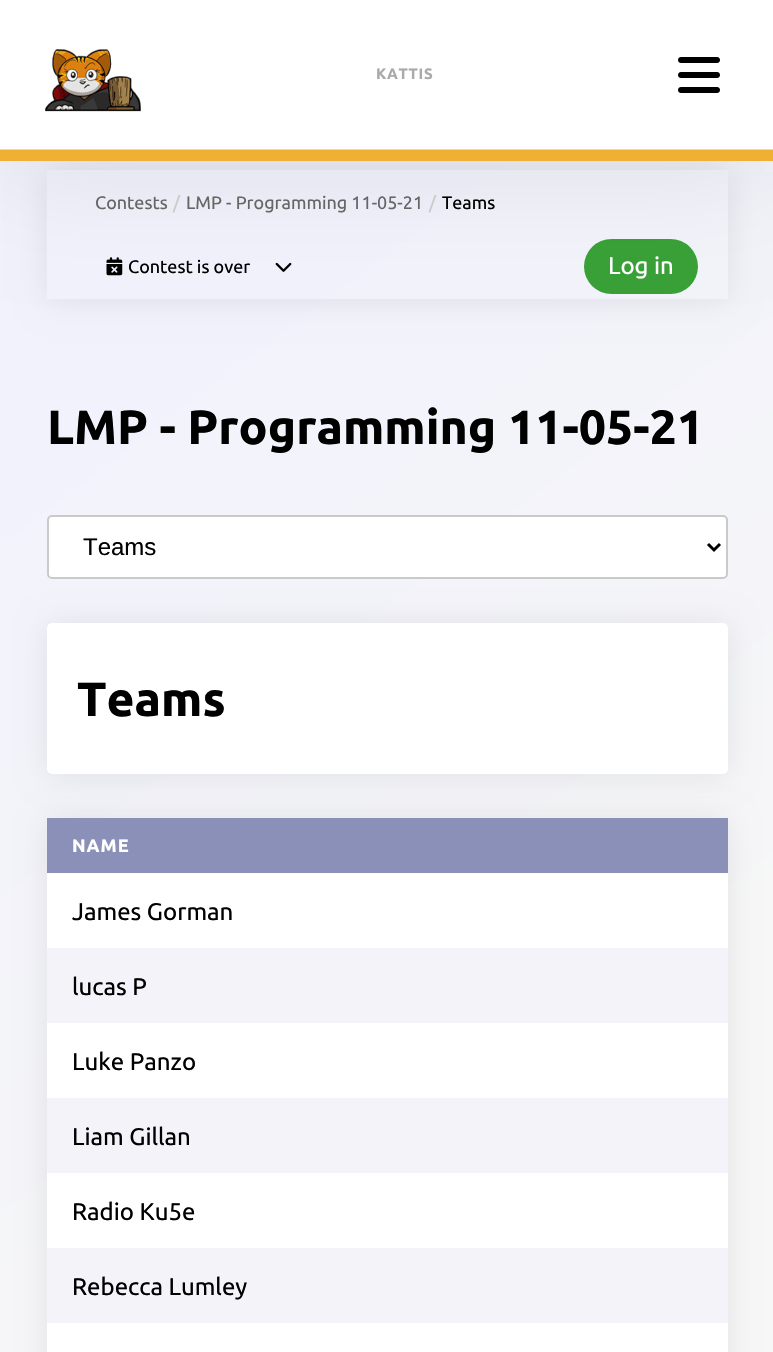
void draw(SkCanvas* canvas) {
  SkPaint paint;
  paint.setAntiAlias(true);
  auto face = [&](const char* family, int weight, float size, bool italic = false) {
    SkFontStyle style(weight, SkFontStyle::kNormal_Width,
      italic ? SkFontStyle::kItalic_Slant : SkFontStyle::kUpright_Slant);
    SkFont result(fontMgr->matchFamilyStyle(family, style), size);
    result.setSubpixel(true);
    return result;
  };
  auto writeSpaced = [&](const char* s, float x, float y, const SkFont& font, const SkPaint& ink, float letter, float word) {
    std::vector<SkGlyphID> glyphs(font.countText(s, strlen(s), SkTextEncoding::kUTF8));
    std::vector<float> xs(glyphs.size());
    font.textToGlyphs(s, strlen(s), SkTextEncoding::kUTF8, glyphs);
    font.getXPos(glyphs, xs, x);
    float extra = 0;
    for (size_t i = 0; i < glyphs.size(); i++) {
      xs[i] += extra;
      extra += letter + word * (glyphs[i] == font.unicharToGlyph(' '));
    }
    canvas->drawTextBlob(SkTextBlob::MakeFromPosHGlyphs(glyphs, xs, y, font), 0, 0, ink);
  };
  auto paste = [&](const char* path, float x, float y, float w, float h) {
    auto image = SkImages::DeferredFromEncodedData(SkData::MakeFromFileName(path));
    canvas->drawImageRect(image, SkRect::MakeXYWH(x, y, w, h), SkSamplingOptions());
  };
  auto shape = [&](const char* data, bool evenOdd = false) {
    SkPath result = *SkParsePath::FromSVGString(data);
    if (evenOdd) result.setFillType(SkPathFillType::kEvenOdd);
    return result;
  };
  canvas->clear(0xffffffff);
  {
    const SkColor colors[] = {0xfff1f2fc, 0xfff7f7f7};
    const float stops[] = {0.22f, 0.75f};
    const SkPoint ends[] = {{-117, 62}, {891, 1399}};
    paint.setShader(SkGradientShader::MakeLinear(ends, colors, stops, 2, SkTileMode::kClamp));
    paint.setAlpha(255);
  }
  canvas->drawRect(SkRect::MakeXYWH(0, 161, 773, 1191), paint);
  canvas->save();
  canvas->clipPath(shape("M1 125H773V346H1ZM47 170H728V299H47Z", true), true);
  paint.setShader(nullptr);
  paint.setColor(0x14000000);
  paint.setMaskFilter(SkMaskFilter::MakeBlur(kNormal_SkBlurStyle, 15));
  canvas->drawRect(SkRect::MakeXYWH(47, 171, 681, 129), paint);
  paint.setMaskFilter(nullptr);
  canvas->restore();
  paste("img/3.png", 106, 257, 17, 19);
  paste("img/4.png", 275, 262, 17, 10);
  paint.setColor(0xff39a137);
  canvas->drawRoundRect(SkRect::MakeXYWH(584, 239, 114, 55), 27.5f, 27.5f, paint);
  paint.setColor(0x17000000);
  paint.setMaskFilter(SkMaskFilter::MakeBlur(kNormal_SkBlurStyle, 60));
  canvas->drawRect(SkRect::MakeXYWH(0, 3, 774, 161), paint);
  paint.setMaskFilter(nullptr);
  paint.setColor(0xffffffff);
  canvas->drawRect(SkRect::MakeXYWH(0, 0, 773, 149), paint);
  paint.setColor(0xffd9d9d9);
  canvas->drawRect(SkRect::MakeXYWH(0, 149, 773, 1), paint);
  paste("img/1.png", 45, 49, 96, 63);
  paste("img/2.png", 678, 57, 42, 36);
  paint.setColor(0xfff0b034);
  canvas->drawRect(SkRect::MakeXYWH(0, 150, 773, 11), paint);
  paint.setColor(0x14000000);
  paint.setMaskFilter(SkMaskFilter::MakeBlur(kNormal_SkBlurStyle, 15));
  canvas->drawRoundRect(SkRect::MakeXYWH(47, 624, 681, 152), 5, 5, paint);
  paint.setMaskFilter(nullptr);
  paint.setColor(0xffffffff);
  canvas->drawRoundRect(SkRect::MakeXYWH(48, 516, 679, 62), 4, 4, paint);
  paint.setStroke(true);
  paint.setStrokeWidth(2);
  paint.setColor(0xffcacaca);
  canvas->drawRoundRect(SkRect::MakeXYWH(48, 516, 679, 62), 4, 4, paint);
  paint.setStrokeWidth(3);
  paint.setColor(0xff000000);
  canvas->drawPath(shape("M708 544L714 550L720 544"), paint);
  paint.setStroke(false);
  paint.setColor(0xffffffff);
  canvas->drawRoundRect(SkRect::MakeXYWH(47, 623, 681, 151), 5, 5, paint);
  paint.setColor(0x14000000);
  paint.setMaskFilter(SkMaskFilter::MakeBlur(kNormal_SkBlurStyle, 15));
  canvas->drawRoundRect(SkRect::MakeXYWH(47, 819, 681, 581), 5, 5, paint);
  paint.setMaskFilter(nullptr);
  {
    const struct { float x, y, w, h; SkColor color; } items[] = {
      {47, 873, 681, 479, 0xffffffff},
      {47, 818, 681, 55, 0xff8a90b7},
      {47, 948, 681, 75, 0xfff3f3f9},
      {47, 1098, 681, 75, 0xfff3f3f9},
      {47, 1248, 681, 75, 0xfff3f3f9},
    };
    for (auto [x, y, w, h, color] : items) {
      paint.setColor(color);
      canvas->drawRect(SkRect::MakeXYWH(x, y, w, h), paint);
    }
  }
  auto f0 = face("Ubuntu", 700, 15);
  paint.setColor(0xffaaaaaa);
  writeSpaced("KATTIS", 376, 79, f0, paint, 0.75f, 0);
  auto f1 = face("Ubuntu", 400, 18);
  paint.setColor(0xff666666);
  canvas->drawString("Contests", 95, 209, f1, paint);
  paint.setColor(0xffcacaca);
  canvas->drawString("/", 173, 209, f1, paint);
  paint.setColor(0xff666666);
  canvas->drawString("LMP - Programming 11-05-21", 186, 209, f1, paint);
  paint.setColor(0xffcacaca);
  canvas->drawString("/", 429, 209, f1, paint);
  paint.setColor(0xff000000);
  canvas->drawString("Teams", 442, 209, f1, paint);
  canvas->drawString("Contest is over", 128, 273, f1, paint);
  auto f2 = face("Ubuntu", 400, 24);
  paint.setColor(0xffffffff);
  canvas->drawString("Log in", 608, 274, f2, paint);
  auto f3 = face("Ubuntu", 700, 48);
  paint.setColor(0xff000000);
  canvas->drawString("LMP - Programming 11-05-21", 47, 444, f3, paint);
  auto f4 = face("Liberation Sans", 400, 24);
  canvas->drawString("Teams", 83, 555, f4, paint);
  canvas->drawString("Teams", 77, 716, f3, paint);
  auto f5 = face("Ubuntu", 700, 18);
  paint.setColor(0xffffffff);
  writeSpaced("NAME", 72, 852, f5, paint, 1, 0);
  paint.setColor(0xff000000);
  {
    const struct { const char* s; float x, y; } items[] = {
      {"James Gorman", 72, 920},
      {"lucas P", 72, 995},
      {"Luke Panzo", 72, 1070},
      {"Liam Gillan", 72, 1145},
      {"Radio Ku5e", 72, 1220},
      {"Rebecca Lumley", 72, 1295},
    };
    for (auto [s, x, y] : items) {
      canvas->drawString(s, x, y, f2, paint);
    }
  }
}
